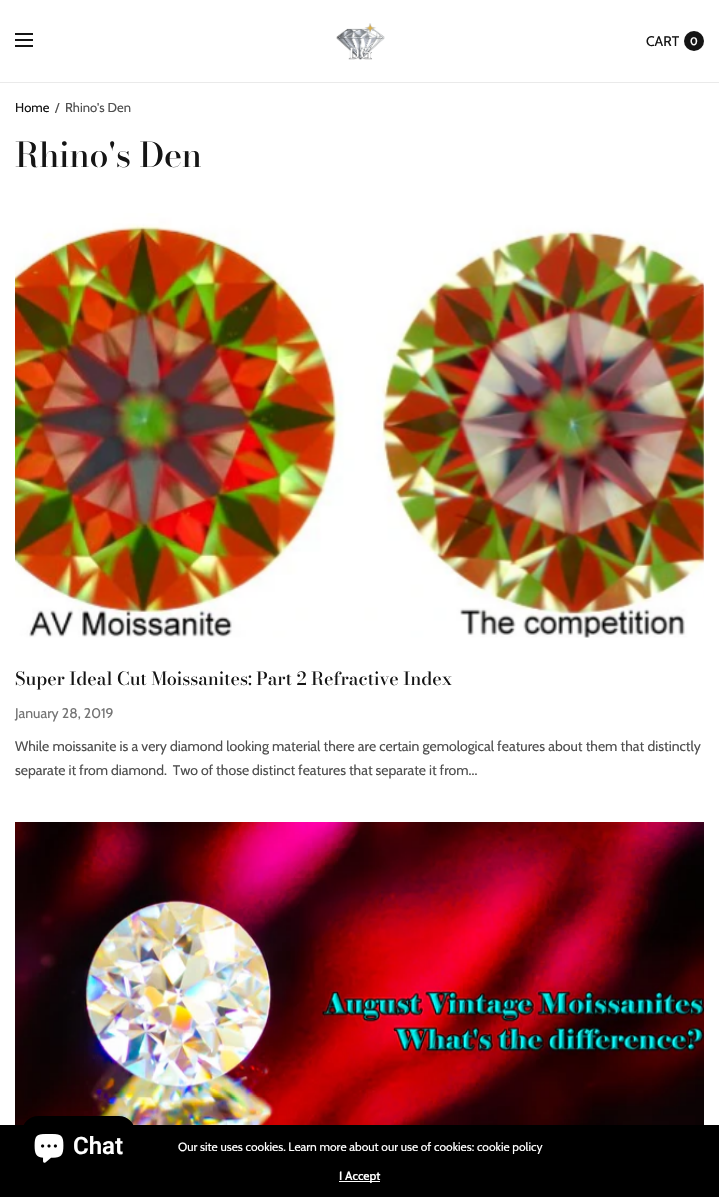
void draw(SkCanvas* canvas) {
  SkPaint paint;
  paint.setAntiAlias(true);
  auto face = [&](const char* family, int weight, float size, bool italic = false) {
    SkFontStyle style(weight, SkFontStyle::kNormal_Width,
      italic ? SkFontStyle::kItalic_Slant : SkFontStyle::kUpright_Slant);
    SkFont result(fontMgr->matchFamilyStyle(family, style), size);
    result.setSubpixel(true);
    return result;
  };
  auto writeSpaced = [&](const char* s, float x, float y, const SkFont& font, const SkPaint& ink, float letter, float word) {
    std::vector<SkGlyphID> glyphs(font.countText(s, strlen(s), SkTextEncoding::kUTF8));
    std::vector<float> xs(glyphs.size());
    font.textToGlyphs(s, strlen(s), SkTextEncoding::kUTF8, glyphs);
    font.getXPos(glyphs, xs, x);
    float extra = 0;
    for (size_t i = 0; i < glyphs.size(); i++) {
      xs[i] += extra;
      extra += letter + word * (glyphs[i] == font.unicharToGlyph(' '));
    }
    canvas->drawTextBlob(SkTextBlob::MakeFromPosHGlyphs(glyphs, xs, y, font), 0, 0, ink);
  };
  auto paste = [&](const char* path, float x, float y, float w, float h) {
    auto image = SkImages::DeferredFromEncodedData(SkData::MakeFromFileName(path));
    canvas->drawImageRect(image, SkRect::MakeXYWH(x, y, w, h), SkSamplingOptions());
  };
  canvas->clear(0xffffffff);
  {
    const struct { float x, y, w, h; SkColor color; } items[] = {
      {0, 82, 719, 1, 0xffeaeaea},
      {15, 33, 18, 2, 0xff151515},
      {15, 39, 18, 2, 0xff151515},
      {15, 45, 18, 2, 0xff151515},
    };
    for (auto [x, y, w, h, color] : items) {
      paint.setColor(color);
      canvas->drawRect(SkRect::MakeXYWH(x, y, w, h), paint);
    }
  }
  paste("img/1.png", 336, 23, 49, 37);
  canvas->drawCircle(694, 41, 10, paint);
  paste("img/2.png", 15, 213, 689, 425);
  paste("img/3.png", 15, 822, 689, 303);
  paint.setColor(0xff000000);
  canvas->drawRect(SkRect::MakeXYWH(0, 1125, 719, 72), paint);
  paint.setColor(0x26000000);
  paint.setMaskFilter(SkMaskFilter::MakeBlur(kNormal_SkBlurStyle, 2.5f));
  canvas->drawRoundRect(SkRect::MakeXYWH(22, 1116, 113, 60), 16, 16, paint);
  paint.setMaskFilter(nullptr);
  paint.setColor(0xff000000);
  canvas->drawRoundRect(SkRect::MakeXYWH(22, 1116, 113, 60), 16, 16, paint);
  paste("img/4.png", 34, 1134, 30, 29);
  paint.setColor(0xffffffff);
  canvas->drawRect(SkRect::MakeXYWH(339, 1181, 41, 1), paint);
  auto f0 = face("Cabin", 400, 14);
  paint.setColor(0xff151515);
  canvas->drawString("CART", 646, 46, f0, paint);
  auto f1 = face("Cabin", 600, 11);
  paint.setColor(0xffffffff);
  canvas->drawString("0", 690, 45, f1, paint);
  auto f2 = face("Cabin", 400, 13);
  paint.setColor(0xff151515);
  canvas->drawString("Home", 15, 112, f2, paint);
  paint.setColor(0xff505050);
  canvas->drawString("/", 55, 112, f2, paint);
  canvas->drawString("Rhino's Den", 65, 112, f2, paint);
  auto f3 = face("Bodoni Moda", 500, 34);
  paint.setColor(0xff151515);
  canvas->drawString("Rhino's Den", 15, 167, f3, paint);
  auto f4 = face("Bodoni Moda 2", 500, 18);
  canvas->drawString("Super Ideal Cut Moissanites: Part 2 Refractive Index", 15, 685, f4, paint);
  paint.setColor(0xff737373);
  canvas->drawString("January 28, 2019", 15, 718, f0, paint);
  paint.setColor(0xff505050);
  canvas->drawString("While moissanite is a very diamond looking material there are certain gemological features about them that distinctly", 15, 751, f0, paint);
  writeSpaced("separate it from diamond.  Two of those distinct features that separate it from...", 15, 775, f0, paint, 0, -0.25f);
  auto f5 = face("Roboto", 600, 24);
  paint.setColor(0xffffffff);
  canvas->drawString("Chat", 73, 1154, f5, paint);
  auto f6 = face("Cabin", 400, 12);
  canvas->drawString("Our site uses cookies. Learn more about our use of cookies: cookie policy", 178, 1151, f6, paint);
  auto f7 = face("Cabin", 600, 12);
  canvas->drawString("I Accept", 339, 1180, f7, paint);
}
